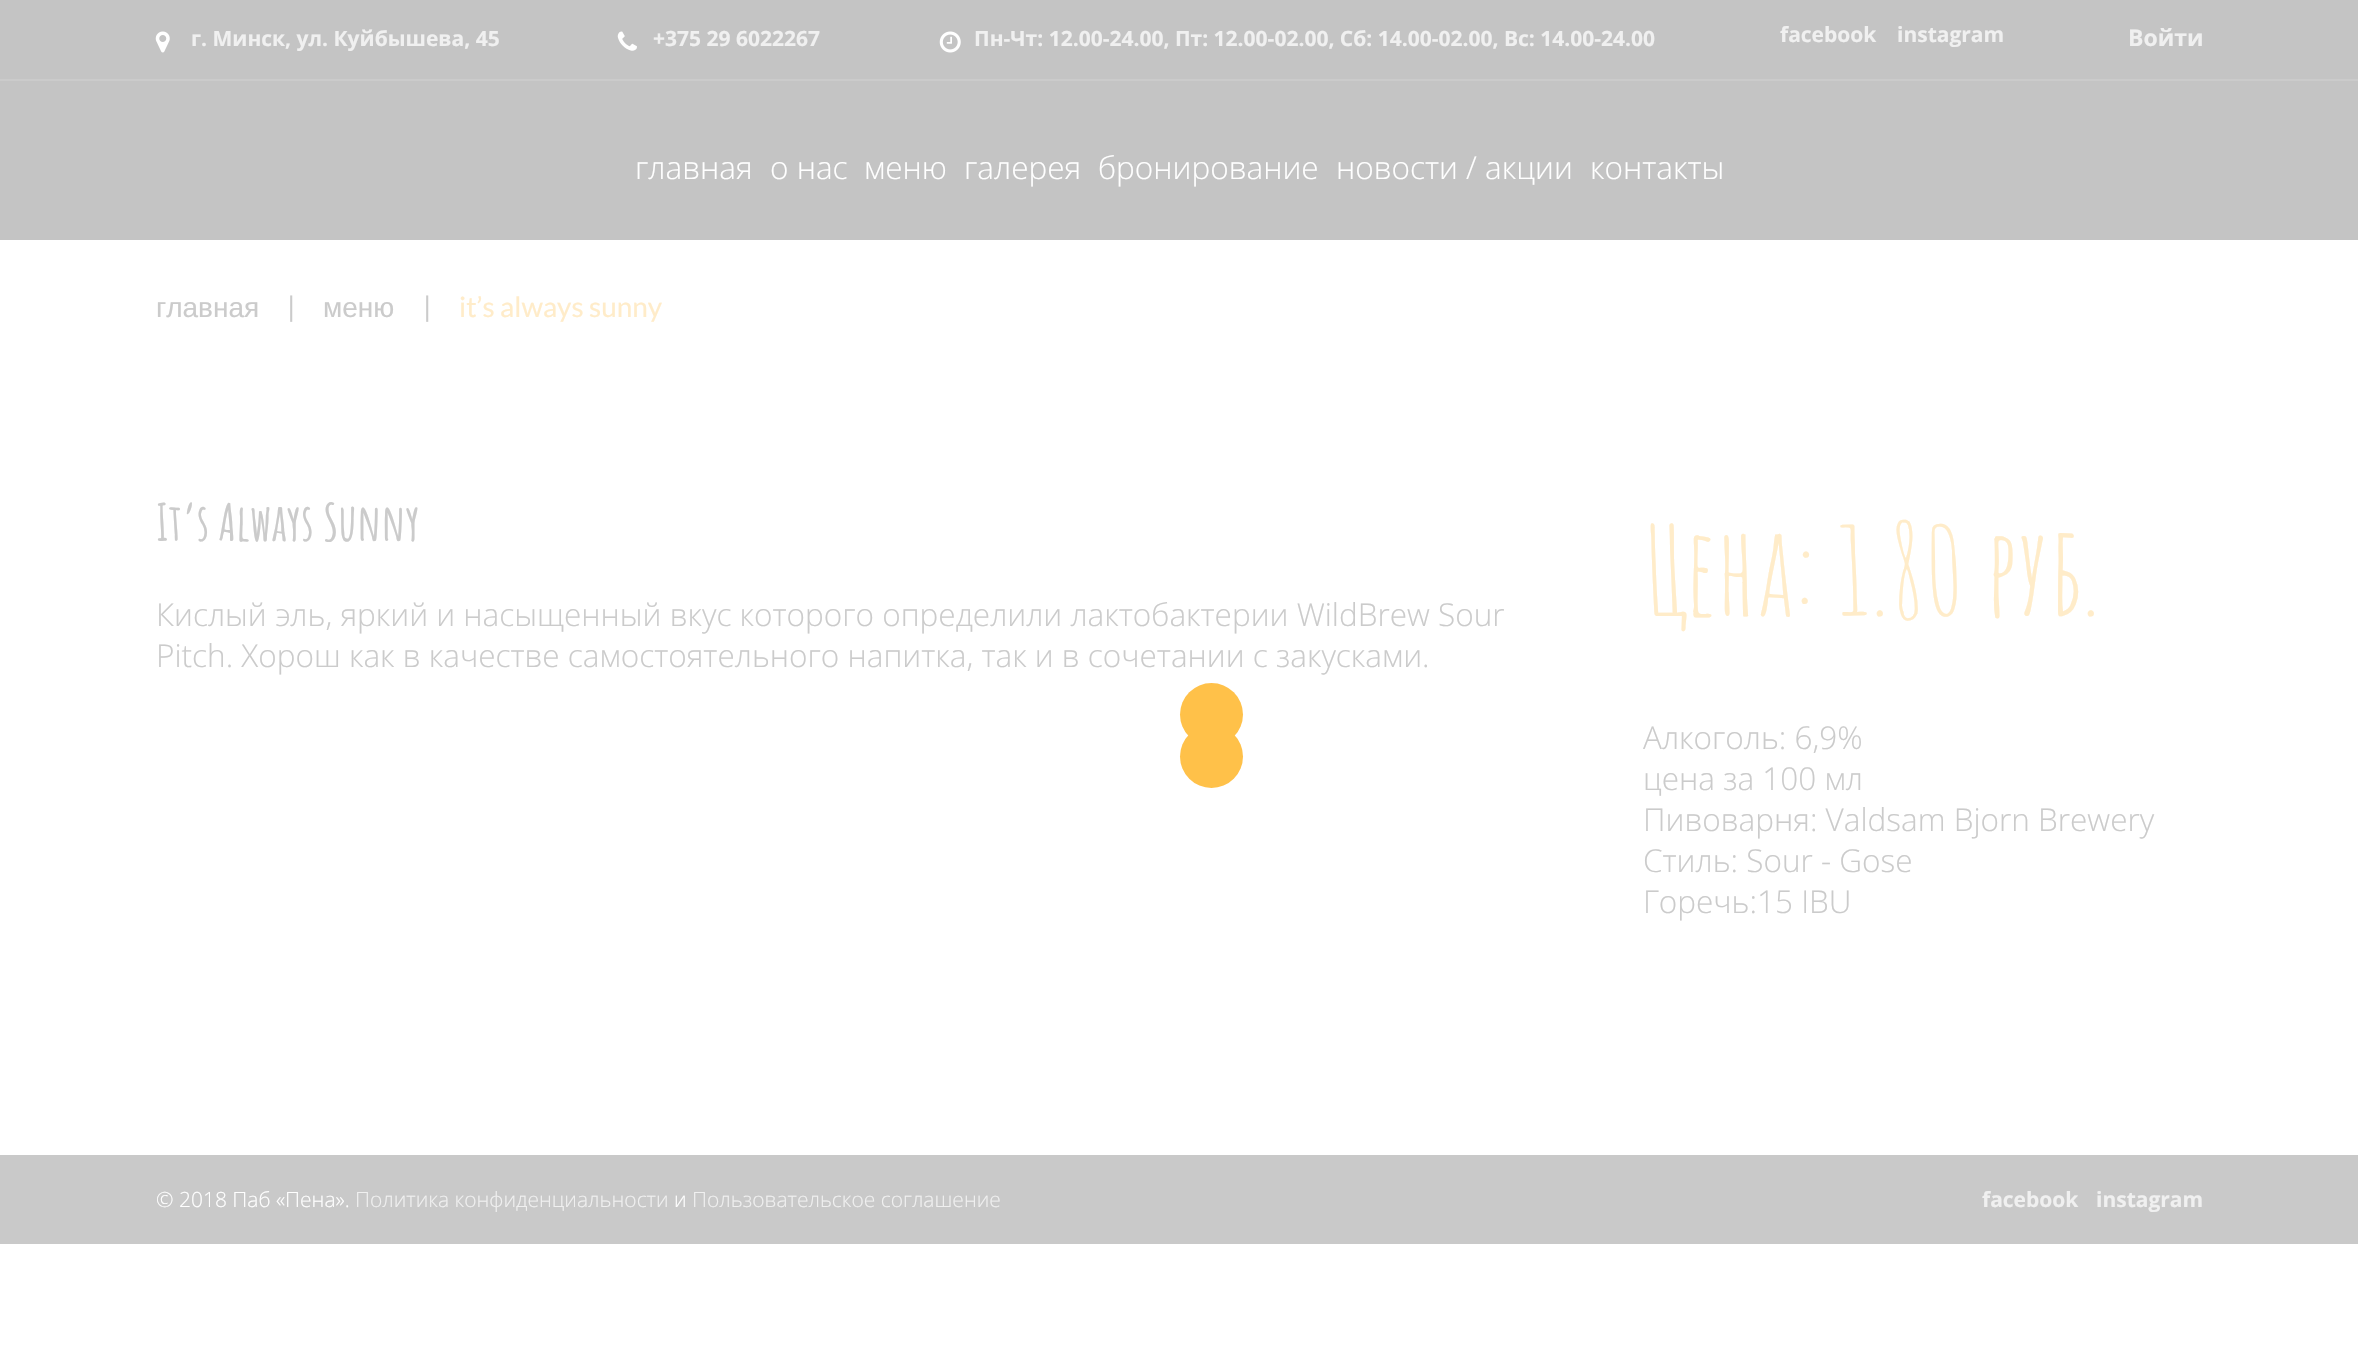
void draw(SkCanvas* canvas) {
  SkPaint paint;
  paint.setAntiAlias(true);
  auto face = [&](const char* family, int weight, float size, bool italic = false) {
    SkFontStyle style(weight, SkFontStyle::kNormal_Width,
      italic ? SkFontStyle::kItalic_Slant : SkFontStyle::kUpright_Slant);
    SkFont result(fontMgr->matchFamilyStyle(family, style), size);
    result.setSubpixel(true);
    return result;
  };
  auto paste = [&](const char* path, float x, float y, float w, float h) {
    auto image = SkImages::DeferredFromEncodedData(SkData::MakeFromFileName(path));
    canvas->drawImageRect(image, SkRect::MakeXYWH(x, y, w, h), SkSamplingOptions());
  };
  canvas->clear(0xffffffff);
  paint.setColor(0xffc4c4c4);
  canvas->drawRect(SkRect::MakeXYWH(0, 0, 2358, 79), paint);
  paint.setColor(0xffcbcbcb);
  canvas->drawRect(SkRect::MakeXYWH(0, 79, 2358, 2), paint);
  paste("img/1.png", 155, 31, 15, 22);
  paste("img/2.png", 617, 31, 20, 20);
  paste("img/3.png", 939, 31, 22, 22);
  paint.setColor(0xffc4c4c4);
  canvas->drawRect(SkRect::MakeXYWH(0, 81, 2358, 159), paint);
  paint.setColor(0xffc9c9c9);
  canvas->drawRect(SkRect::MakeXYWH(0, 1155, 2358, 89), paint);
  paint.setColor(0xffffc149);
  canvas->drawCircle(1211.5f, 714.5f, 31.5f, paint);
  canvas->drawCircle(1211.5f, 756.5f, 31.5f, paint);
  auto f0 = face("Open Sans", 700, 21);
  paint.setColor(0xfff0f0f0);
  {
    const struct { const char* s; float x, y; } items[] = {
      {"г. Минск, ул. Куйбышева, 45", 191, 46},
      {"+375 29 6022267", 653, 46},
      {"Пн-Чт: 12.00-24.00, Пт: 12.00-02.00, Сб: 14.00-02.00, Вс: 14.00-24.00", 974, 46},
      {"facebook", 1780, 42},
      {"instagram", 1897, 42},
    };
    for (auto [s, x, y] : items) {
      canvas->drawString(s, x, y, f0, paint);
    }
  }
  auto f1 = face("Open Sans", 700, 23);
  canvas->drawString("Войти", 2128, 46, f1, paint);
  auto f2 = face("Open Sans", 300, 31.5f);
  paint.setColor(0xffffffff);
  {
    const struct { const char* s; float x, y; } items[] = {
      {"главная", 635, 179},
      {"о нас", 770, 179},
      {"меню", 864, 179},
      {"галерея", 964, 179},
      {"бронирование", 1098, 179},
      {"новости / акции", 1336, 179},
      {"контакты", 1590, 179},
    };
    for (auto [s, x, y] : items) {
      canvas->drawString(s, x, y, f2, paint);
    }
  }
  auto f3 = face("Liberation Sans", 400, 28);
  paint.setColor(0xffcbcbcb);
  canvas->drawString("главная", 156, 317, f3, paint);
  auto f4 = face("Lato", 400, 28);
  canvas->drawString("|", 287, 317, f4, paint);
  canvas->drawString("меню", 323, 317, f3, paint);
  canvas->drawString("|", 423, 317, f4, paint);
  paint.setColor(0xffffecc9);
  canvas->drawString("it’s always sunny", 459, 317, f4, paint);
  auto f5 = face("Amatic SC", 700, 50.75f);
  paint.setColor(0xffcbcbcb);
  canvas->drawString("It’s Always Sunny", 156, 541, f5, paint);
  canvas->drawString("Кислый эль, яркий и насыщенный вкус которого определили лактобактерии WildBrew Sour", 156, 626, f2, paint);
  canvas->drawString("Pitch. Хорош как в качестве самостоятельного напитка, так и в сочетании с закусками.", 156, 667, f2, paint);
  auto f6 = face("Amatic SC", 400, 122.5f);
  paint.setColor(0xffffecc9);
  canvas->drawString("Цена: 1.80 руб.", 1643, 616, f6, paint);
  paint.setColor(0xffcbcbcb);
  {
    const struct { const char* s; float x, y; } items[] = {
      {"Алкоголь: 6,9%", 1643, 749},
      {"цена за 100 мл", 1643, 790},
      {"Пивоварня: Valdsam Bjorn Brewery", 1643, 831},
      {"Стиль: Sour - Gose", 1643, 872},
      {"Горечь:15 IBU", 1643, 913},
    };
    for (auto [s, x, y] : items) {
      canvas->drawString(s, x, y, f2, paint);
    }
  }
  auto f7 = face("Open Sans", 300, 21);
  paint.setColor(0xffffffff);
  canvas->drawString("© 2018 Паб «Пена».", 156, 1207, f7, paint);
  paint.setColor(0xfff0f0f0);
  canvas->drawString("Политика конфиденциальности", 355, 1207, f7, paint);
  paint.setColor(0xffffffff);
  canvas->drawString("и", 674, 1207, f7, paint);
  paint.setColor(0xfff0f0f0);
  canvas->drawString("Пользовательское соглашение", 692, 1207, f7, paint);
  canvas->drawString("facebook", 1982, 1207, f0, paint);
  canvas->drawString("instagram", 2096, 1207, f0, paint);
}
